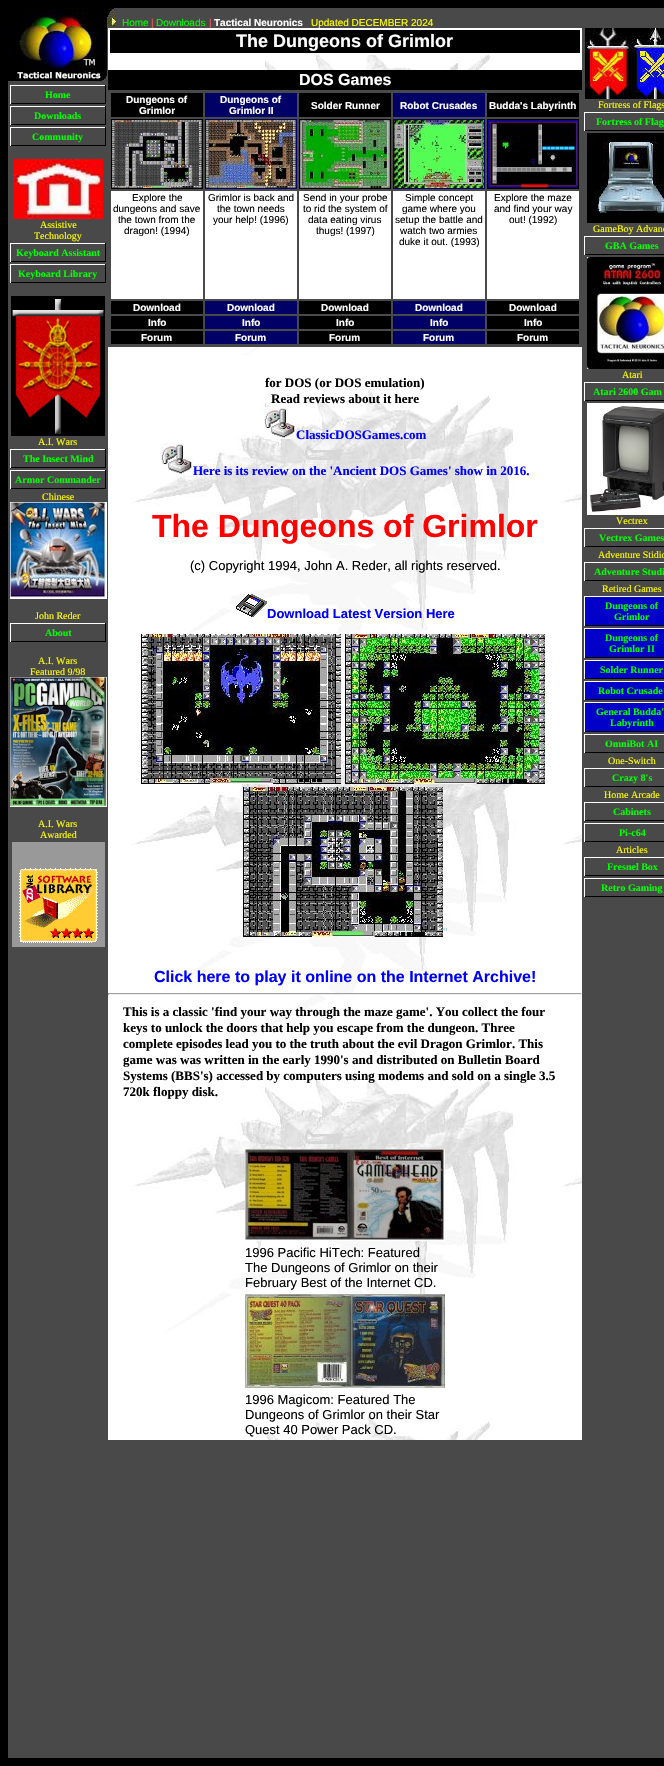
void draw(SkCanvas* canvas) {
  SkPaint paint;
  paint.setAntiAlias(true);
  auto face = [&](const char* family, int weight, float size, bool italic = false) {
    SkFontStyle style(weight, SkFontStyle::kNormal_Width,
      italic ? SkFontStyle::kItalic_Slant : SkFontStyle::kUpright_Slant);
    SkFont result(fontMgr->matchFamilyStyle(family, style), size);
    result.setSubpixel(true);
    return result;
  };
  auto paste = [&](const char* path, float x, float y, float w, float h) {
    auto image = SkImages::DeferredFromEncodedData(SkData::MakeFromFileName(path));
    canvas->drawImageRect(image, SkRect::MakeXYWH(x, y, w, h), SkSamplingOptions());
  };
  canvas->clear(0xff000000);
  paint.setColor(0xff494949);
  canvas->drawRect(SkRect::MakeXYWH(8, 8, 656, 1750), paint);
  paste("img/1.png", 8, 8, 100, 75);
  {
    const struct { float x, y, w, h; SkColor color; } items[] = {
      {10, 85, 96, 1, 0xffffffff},
      {105, 85, 1, 19, 0xff000000},
      {10, 103, 96, 1, 0xff000000},
      {10, 85, 1, 19, 0xffffffff},
      {10, 106, 96, 1, 0xffffffff},
      {105, 106, 1, 19, 0xff000000},
      {10, 124, 96, 1, 0xff000000},
      {10, 106, 1, 19, 0xffffffff},
      {10, 127, 96, 1, 0xffffffff},
      {105, 127, 1, 19, 0xff000000},
      {10, 145, 96, 1, 0xff000000},
      {10, 127, 1, 19, 0xffffffff},
    };
    for (auto [x, y, w, h, color] : items) {
      paint.setColor(color);
      canvas->drawRect(SkRect::MakeXYWH(x, y, w, h), paint);
    }
  }
  paste("img/2.png", 13, 159, 90, 60);
  {
    const struct { float x, y, w, h; SkColor color; } items[] = {
      {10, 243, 96, 1, 0xffffffff},
      {105, 243, 1, 19, 0xff000000},
      {10, 261, 96, 1, 0xff000000},
      {10, 243, 1, 19, 0xffffffff},
      {10, 264, 96, 1, 0xffffffff},
      {105, 264, 1, 19, 0xff000000},
      {10, 282, 96, 1, 0xff000000},
      {10, 264, 1, 19, 0xffffffff},
    };
    for (auto [x, y, w, h, color] : items) {
      paint.setColor(color);
      canvas->drawRect(SkRect::MakeXYWH(x, y, w, h), paint);
    }
  }
  paste("img/3.png", 11, 296, 94, 140);
  {
    const struct { float x, y, w, h; SkColor color; } items[] = {
      {10, 449, 96, 1, 0xffffffff},
      {105, 449, 1, 19, 0xff000000},
      {10, 467, 96, 1, 0xff000000},
      {10, 449, 1, 19, 0xffffffff},
      {10, 470, 96, 1, 0xffffffff},
      {105, 470, 1, 19, 0xff000000},
      {10, 488, 96, 1, 0xff000000},
      {10, 470, 1, 19, 0xffffffff},
    };
    for (auto [x, y, w, h, color] : items) {
      paint.setColor(color);
      canvas->drawRect(SkRect::MakeXYWH(x, y, w, h), paint);
    }
  }
  paste("img/4.png", 10, 502, 97, 97);
  {
    const struct { float x, y, w, h; SkColor color; } items[] = {
      {10, 623, 96, 1, 0xffffffff},
      {105, 623, 1, 19, 0xff000000},
      {10, 641, 96, 1, 0xff000000},
      {10, 623, 1, 19, 0xffffffff},
    };
    for (auto [x, y, w, h, color] : items) {
      paint.setColor(color);
      canvas->drawRect(SkRect::MakeXYWH(x, y, w, h), paint);
    }
  }
  paste("img/5.png", 10, 677, 97, 130);
  paint.setColor(0xff999999);
  canvas->drawRect(SkRect::MakeXYWH(12, 842, 93, 105), paint);
  paste("img/6.png", 19, 868, 79, 75);
  paste("img/7.png", 108, 8, 8, 18);
  paste("img/8.png", 108, 55, 474, 1385);
  {
    const struct { float x, y, w, h; SkColor color; } items[] = {
      {108, 28, 474, 27, 0xffffffff},
      {110, 30, 470, 23, 0xff000000},
      {108, 90, 474, 257, 0xff494949},
      {108, 70, 474, 20, 0xff000000},
      {111, 93, 92, 24, 0xff000000},
      {205, 93, 92, 24, 0xff000066},
      {299, 93, 92, 24, 0xff000000},
      {393, 93, 92, 24, 0xff000066},
      {487, 93, 92, 24, 0xff000000},
      {111, 119, 92, 70, 0xff000000},
    };
    for (auto [x, y, w, h, color] : items) {
      paint.setColor(color);
      canvas->drawRect(SkRect::MakeXYWH(x, y, w, h), paint);
    }
  }
  paste("img/9.png", 112, 120, 90, 68);
  paint.setColor(0xff000066);
  canvas->drawRect(SkRect::MakeXYWH(205, 119, 92, 70), paint);
  paste("img/10.png", 206, 120, 90, 68);
  paint.setColor(0xff000000);
  canvas->drawRect(SkRect::MakeXYWH(299, 119, 92, 70), paint);
  paste("img/11.png", 300, 120, 90, 68);
  paint.setColor(0xff000066);
  canvas->drawRect(SkRect::MakeXYWH(393, 119, 92, 70), paint);
  paste("img/12.png", 394, 120, 90, 68);
  paint.setColor(0xff000000);
  canvas->drawRect(SkRect::MakeXYWH(487, 119, 92, 70), paint);
  paste("img/13.png", 488, 120, 90, 68);
  {
    const struct { float x, y, w, h; SkColor color; } items[] = {
      {111, 191, 92, 108, 0xffffffff},
      {205, 191, 92, 108, 0xffffffff},
      {299, 191, 92, 108, 0xffffffff},
      {393, 191, 92, 108, 0xffffffff},
      {487, 191, 92, 108, 0xffffffff},
      {111, 301, 92, 13, 0xff000000},
      {205, 301, 92, 13, 0xff000066},
      {299, 301, 92, 13, 0xff000000},
      {393, 301, 92, 13, 0xff000066},
      {487, 301, 92, 13, 0xff000000},
      {111, 316, 92, 13, 0xff000000},
      {205, 316, 92, 13, 0xff000066},
      {299, 316, 92, 13, 0xff000000},
      {393, 316, 92, 13, 0xff000066},
      {487, 316, 92, 13, 0xff000000},
      {111, 331, 92, 13, 0xff000000},
      {205, 331, 92, 13, 0xff000066},
      {299, 331, 92, 13, 0xff000000},
      {393, 331, 92, 13, 0xff000066},
      {487, 331, 92, 13, 0xff000000},
    };
    for (auto [x, y, w, h, color] : items) {
      paint.setColor(color);
      canvas->drawRect(SkRect::MakeXYWH(x, y, w, h), paint);
    }
  }
  paste("img/14.png", 264, 407, 32, 32);
  paste("img/14.png", 161, 443, 32, 32);
  paste("img/15.png", 236, 594, 31, 23);
  paste("img/16.png", 141, 634, 200, 150);
  paste("img/17.png", 345, 634, 200, 150);
  paste("img/18.png", 243, 787, 200, 150);
  {
    const struct { float x, y, w, h; SkColor color; } items[] = {
      {108, 993, 474, 1, 0xff9f9f9f},
      {581, 993, 1, 2, 0xffeeeeee},
      {108, 994, 474, 1, 0xffeeeeee},
      {108, 993, 1, 2, 0xff9f9f9f},
    };
    for (auto [x, y, w, h, color] : items) {
      paint.setColor(color);
      canvas->drawRect(SkRect::MakeXYWH(x, y, w, h), paint);
    }
  }
  paste("img/19.png", 245, 1149, 200, 92);
  paste("img/20.png", 245, 1294, 200, 94);
  paste("img/21.png", 585, 28, 47, 71);
  paste("img/22.png", 632, 28, 32, 71);
  {
    const struct { float x, y, w, h; SkColor color; } items[] = {
      {584, 112, 80, 1, 0xffffffff},
      {584, 130, 80, 1, 0xff000000},
      {584, 112, 1, 19, 0xffffffff},
    };
    for (auto [x, y, w, h, color] : items) {
      paint.setColor(color);
      canvas->drawRect(SkRect::MakeXYWH(x, y, w, h), paint);
    }
  }
  paste("img/23.png", 587, 133, 77, 90);
  {
    const struct { float x, y, w, h; SkColor color; } items[] = {
      {584, 236, 80, 1, 0xffffffff},
      {584, 254, 80, 1, 0xff000000},
      {584, 236, 1, 19, 0xffffffff},
    };
    for (auto [x, y, w, h, color] : items) {
      paint.setColor(color);
      canvas->drawRect(SkRect::MakeXYWH(x, y, w, h), paint);
    }
  }
  paste("img/24.png", 587, 257, 77, 112);
  {
    const struct { float x, y, w, h; SkColor color; } items[] = {
      {584, 382, 80, 1, 0xffffffff},
      {584, 400, 80, 1, 0xff000000},
      {584, 382, 1, 19, 0xffffffff},
    };
    for (auto [x, y, w, h, color] : items) {
      paint.setColor(color);
      canvas->drawRect(SkRect::MakeXYWH(x, y, w, h), paint);
    }
  }
  paste("img/25.png", 587, 403, 77, 112);
  {
    const struct { float x, y, w, h; SkColor color; } items[] = {
      {584, 528, 80, 1, 0xffffffff},
      {584, 546, 80, 1, 0xff000000},
      {584, 528, 1, 19, 0xffffffff},
      {584, 562, 80, 1, 0xffffffff},
      {584, 580, 80, 1, 0xff000000},
      {584, 562, 1, 19, 0xffffffff},
      {585, 597, 79, 28, 0xff0000c9},
      {584, 596, 80, 1, 0xffffffff},
      {584, 625, 80, 1, 0xff000000},
      {584, 596, 1, 30, 0xffffffff},
      {585, 629, 79, 28, 0xff0000c9},
      {584, 628, 80, 1, 0xffffffff},
      {584, 657, 80, 1, 0xff000000},
      {584, 628, 1, 30, 0xffffffff},
      {585, 661, 79, 17, 0xff0000c9},
      {584, 660, 80, 1, 0xffffffff},
      {584, 678, 80, 1, 0xff000000},
      {584, 660, 1, 19, 0xffffffff},
      {585, 682, 79, 17, 0xff0000c9},
      {584, 681, 80, 1, 0xffffffff},
      {584, 699, 80, 1, 0xff000000},
      {584, 681, 1, 19, 0xffffffff},
      {585, 703, 79, 28, 0xff0000c9},
      {584, 702, 80, 1, 0xffffffff},
      {584, 731, 80, 1, 0xff000000},
      {584, 702, 1, 30, 0xffffffff},
      {584, 734, 80, 1, 0xffffffff},
      {584, 752, 80, 1, 0xff000000},
      {584, 734, 1, 19, 0xffffffff},
      {584, 768, 80, 1, 0xffffffff},
      {584, 786, 80, 1, 0xff000000},
      {584, 768, 1, 19, 0xffffffff},
      {584, 802, 80, 1, 0xffffffff},
      {584, 820, 80, 1, 0xff000000},
      {584, 802, 1, 19, 0xffffffff},
      {584, 823, 80, 1, 0xffffffff},
      {584, 841, 80, 1, 0xff000000},
      {584, 823, 1, 19, 0xffffffff},
      {584, 857, 80, 1, 0xffffffff},
      {584, 875, 80, 1, 0xff000000},
      {584, 857, 1, 19, 0xffffffff},
      {584, 878, 80, 1, 0xffffffff},
      {584, 896, 80, 1, 0xff000000},
      {584, 878, 1, 19, 0xffffffff},
    };
    for (auto [x, y, w, h, color] : items) {
      paint.setColor(color);
      canvas->drawRect(SkRect::MakeXYWH(x, y, w, h), paint);
    }
  }
  auto f0 = face("Liberation Serif", 700, 10);
  paint.setColor(0xff00ff00);
  {
    const struct { const char* s; float x, y; } items[] = {
      {"Home", 45, 98},
      {"Downloads", 34, 119},
      {"Community", 32, 140},
    };
    for (auto [s, x, y] : items) {
      canvas->drawString(s, x, y, f0, paint);
    }
  }
  auto f1 = face("Liberation Serif", 400, 10);
  paint.setColor(0xffffff00);
  canvas->drawString("Assistive", 40, 228, f1, paint);
  canvas->drawString("Technology", 34, 239, f1, paint);
  paint.setColor(0xff00ff00);
  canvas->drawString("Keyboard Assistant", 16, 256, f0, paint);
  canvas->drawString("Keyboard Library", 18, 277, f0, paint);
  paint.setColor(0xffffff00);
  canvas->drawString("A.I. Wars", 38, 445, f1, paint);
  paint.setColor(0xff00ff00);
  canvas->drawString("The Insect Mind", 23, 462, f0, paint);
  canvas->drawString("Armor Commander", 15, 483, f0, paint);
  paint.setColor(0xffffff00);
  canvas->drawString("Chinese", 42, 500, f1, paint);
  canvas->drawString("John Reder", 35, 619, f1, paint);
  paint.setColor(0xff00ff00);
  canvas->drawString("About", 45, 636, f0, paint);
  paint.setColor(0xffffff00);
  {
    const struct { const char* s; float x, y; } items[] = {
      {"A.I. Wars", 38, 664},
      {"Featured 9/98", 30, 675},
      {"A.I. Wars", 38, 827},
      {"Awarded", 40, 838},
    };
    for (auto [s, x, y] : items) {
      canvas->drawString(s, x, y, f1, paint);
    }
  }
  auto f2 = face("Liberation Sans", 400, 10);
  paint.setColor(0xff00ff00);
  canvas->drawString("Home", 122, 26, f2, paint);
  paint.setColor(0xfff25955);
  canvas->drawString("|", 151, 26, f2, paint);
  paint.setColor(0xff00ff00);
  canvas->drawString("Downloads", 156, 26, f2, paint);
  paint.setColor(0xfff25955);
  canvas->drawString("|", 209, 26, f2, paint);
  auto f3 = face("Liberation Sans", 700, 10);
  paint.setColor(0xffffffff);
  canvas->drawString("Tactical Neuronics", 214, 26, f3, paint);
  paint.setColor(0xffffff00);
  canvas->drawString("Updated DECEMBER 2024", 311, 26, f2, paint);
  auto f4 = face("Liberation Sans", 700, 18);
  paint.setColor(0xffffffff);
  canvas->drawString("The Dungeons of Grimlor", 236, 47, f4, paint);
  auto f5 = face("Liberation Sans", 700, 16);
  canvas->drawString("DOS Games", 299, 85, f5, paint);
  {
    const struct { const char* s; float x, y; } items[] = {
      {"Dungeons of", 126, 103},
      {"Grimlor", 139, 114},
      {"Dungeons of", 220, 103},
      {"Grimlor II", 229, 114},
      {"Solder Runner", 311, 109},
      {"Robot Crusades", 400, 109},
      {"Budda's Labyrinth", 489, 109},
    };
    for (auto [s, x, y] : items) {
      canvas->drawString(s, x, y, f3, paint);
    }
  }
  paint.setColor(0xff000000);
  {
    const struct { const char* s; float x, y; } items[] = {
      {"Explore the", 132, 201},
      {"dungeons and save", 113, 212},
      {"the town from the", 118, 223},
      {"dragon! (1994)", 124, 234},
      {"Grimlor is back and", 208, 201},
      {"the town needs", 217, 212},
      {"your help! (1996)", 213, 223},
      {"Send in your probe", 303, 201},
      {"to rid the system of", 303, 212},
      {"data eating virus", 308, 223},
      {"thugs! (1997)", 316, 234},
      {"Simple concept", 405, 201},
      {"game where you", 402, 212},
      {"setup the battle and", 395, 223},
      {"watch two armies", 400, 234},
      {"duke it out. (1993)", 399, 245},
      {"Explore the maze", 494, 201},
      {"and find your way", 494, 212},
      {"out! (1992)", 509, 223},
    };
    for (auto [s, x, y] : items) {
      canvas->drawString(s, x, y, f2, paint);
    }
  }
  paint.setColor(0xffffffff);
  {
    const struct { const char* s; float x, y; } items[] = {
      {"Download", 133, 311},
      {"Download", 227, 311},
      {"Download", 321, 311},
      {"Download", 415, 311},
      {"Download", 509, 311},
      {"Info", 148, 326},
      {"Info", 242, 326},
      {"Info", 336, 326},
      {"Info", 430, 326},
      {"Info", 524, 326},
      {"Forum", 141, 341},
      {"Forum", 235, 341},
      {"Forum", 329, 341},
      {"Forum", 423, 341},
      {"Forum", 517, 341},
    };
    for (auto [s, x, y] : items) {
      canvas->drawString(s, x, y, f3, paint);
    }
  }
  auto f6 = face("Liberation Serif", 700, 13);
  paint.setColor(0xff000000);
  canvas->drawString("for DOS (or DOS emulation)", 265, 387, f6, paint);
  canvas->drawString("Read reviews about it here", 271, 403, f6, paint);
  paint.setColor(0xff0000ff);
  canvas->drawString("ClassicDOSGames.com", 296, 439, f6, paint);
  canvas->drawString("Here is its review on the 'Ancient DOS Games' show in 2016.", 193, 475, f6, paint);
  auto f7 = face("Liberation Sans", 700, 32);
  paint.setColor(0xffff0000);
  canvas->drawString("The Dungeons of Grimlor", 152, 537, f7, paint);
  auto f8 = face("Liberation Sans", 400, 13);
  paint.setColor(0xff000000);
  canvas->drawString("(c) Copyright 1994, John A. Reder, all rights reserved.", 190, 570, f8, paint);
  auto f9 = face("Liberation Sans", 700, 13);
  paint.setColor(0xff0000ff);
  canvas->drawString("Download Latest Version Here", 267, 618, f9, paint);
  paint.setColor(0xffb0ceda);
  canvas->drawString("\"", 443, 937, f8, paint);
  paint.setColor(0xff0000ff);
  canvas->drawString("Click here to play it online on the Internet Archive!", 154, 982, f5, paint);
  paint.setColor(0xff000000);
  {
    const struct { const char* s; float x, y; } items[] = {
      {"This is a classic 'find your way through the maze game'. You collect the four", 123, 1016},
      {"keys to unlock the doors that help you escape from the dungeon. Three", 123, 1032},
      {"complete episodes lead you to the truth about the evil Dragon Grimlor. This", 123, 1048},
      {"game was was written in the early 1990's and distributed on Bulletin Board", 123, 1064},
      {"Systems (BBS's) accessed by computers using modems and sold on a single 3.5", 123, 1080},
      {"720k floppy disk.", 123, 1096},
    };
    for (auto [s, x, y] : items) {
      canvas->drawString(s, x, y, f6, paint);
    }
  }
  {
    const struct { const char* s; float x, y; } items[] = {
      {"1996 Pacific HiTech: Featured", 245, 1257},
      {"The Dungeons of Grimlor on their", 245, 1272},
      {"February Best of the Internet CD.", 245, 1287},
      {"1996 Magicom: Featured The", 245, 1404},
      {"Dungeons of Grimlor on their Star", 245, 1419},
      {"Quest 40 Power Pack CD.", 245, 1434},
    };
    for (auto [s, x, y] : items) {
      canvas->drawString(s, x, y, f8, paint);
    }
  }
  paint.setColor(0xffffff00);
  canvas->drawString("Fortress of Flags", 598, 108, f1, paint);
  paint.setColor(0xff00ff00);
  canvas->drawString("Fortress of Flag", 596, 125, f0, paint);
  paint.setColor(0xffffff00);
  canvas->drawString("GameBoy Advanc", 593, 232, f1, paint);
  paint.setColor(0xff00ff00);
  canvas->drawString("GBA Games", 605, 249, f0, paint);
  paint.setColor(0xffffff00);
  canvas->drawString("Atari", 622, 378, f1, paint);
  paint.setColor(0xff00ff00);
  canvas->drawString("Atari 2600 Gam", 593, 395, f0, paint);
  paint.setColor(0xffffff00);
  canvas->drawString("Vectrex", 616, 524, f1, paint);
  paint.setColor(0xff00ff00);
  canvas->drawString("Vectrex Games", 599, 541, f0, paint);
  paint.setColor(0xffffff00);
  canvas->drawString("Adventure Stidio", 598, 558, f1, paint);
  paint.setColor(0xff00ff00);
  canvas->drawString("Adventure Studi", 594, 575, f0, paint);
  paint.setColor(0xffffff00);
  canvas->drawString("Retired Games", 602, 592, f1, paint);
  paint.setColor(0xff00ff00);
  {
    const struct { const char* s; float x, y; } items[] = {
      {"Dungeons of", 605, 609},
      {"Grimlor", 614, 620},
      {"Dungeons of", 605, 641},
      {"Grimlor II", 609, 652},
      {"Solder Runner", 600, 673},
      {"Robot Crusade", 598, 694},
      {"General Budda'", 596, 715},
      {"Labyrinth", 610, 726},
      {"OmniBot AI", 605, 747},
    };
    for (auto [s, x, y] : items) {
      canvas->drawString(s, x, y, f0, paint);
    }
  }
  paint.setColor(0xffffff00);
  canvas->drawString("One-Switch", 608, 764, f1, paint);
  paint.setColor(0xff00ff00);
  canvas->drawString("Crazy 8's", 612, 781, f0, paint);
  paint.setColor(0xffffff00);
  canvas->drawString("Home Arcade", 604, 798, f1, paint);
  paint.setColor(0xff00ff00);
  canvas->drawString("Cabinets", 613, 815, f0, paint);
  canvas->drawString("Pi-c64", 619, 836, f0, paint);
  paint.setColor(0xffffff00);
  canvas->drawString("Articles", 616, 853, f1, paint);
  paint.setColor(0xff00ff00);
  canvas->drawString("Fresnel Box", 607, 870, f0, paint);
  canvas->drawString("Retro Gaming", 601, 891, f0, paint);
}
